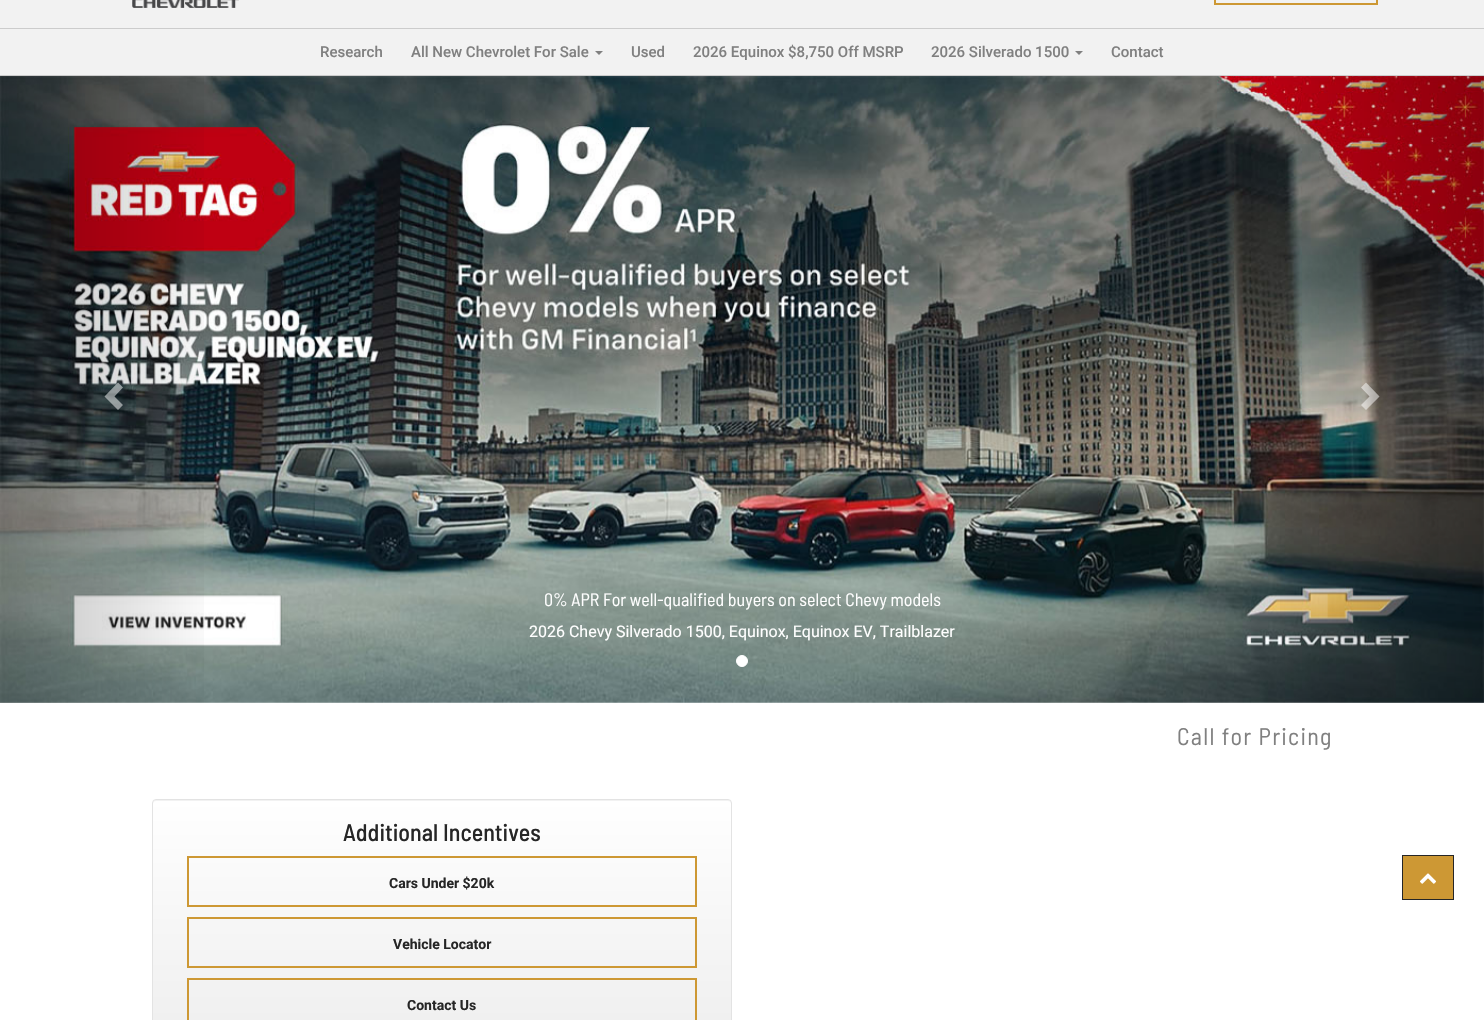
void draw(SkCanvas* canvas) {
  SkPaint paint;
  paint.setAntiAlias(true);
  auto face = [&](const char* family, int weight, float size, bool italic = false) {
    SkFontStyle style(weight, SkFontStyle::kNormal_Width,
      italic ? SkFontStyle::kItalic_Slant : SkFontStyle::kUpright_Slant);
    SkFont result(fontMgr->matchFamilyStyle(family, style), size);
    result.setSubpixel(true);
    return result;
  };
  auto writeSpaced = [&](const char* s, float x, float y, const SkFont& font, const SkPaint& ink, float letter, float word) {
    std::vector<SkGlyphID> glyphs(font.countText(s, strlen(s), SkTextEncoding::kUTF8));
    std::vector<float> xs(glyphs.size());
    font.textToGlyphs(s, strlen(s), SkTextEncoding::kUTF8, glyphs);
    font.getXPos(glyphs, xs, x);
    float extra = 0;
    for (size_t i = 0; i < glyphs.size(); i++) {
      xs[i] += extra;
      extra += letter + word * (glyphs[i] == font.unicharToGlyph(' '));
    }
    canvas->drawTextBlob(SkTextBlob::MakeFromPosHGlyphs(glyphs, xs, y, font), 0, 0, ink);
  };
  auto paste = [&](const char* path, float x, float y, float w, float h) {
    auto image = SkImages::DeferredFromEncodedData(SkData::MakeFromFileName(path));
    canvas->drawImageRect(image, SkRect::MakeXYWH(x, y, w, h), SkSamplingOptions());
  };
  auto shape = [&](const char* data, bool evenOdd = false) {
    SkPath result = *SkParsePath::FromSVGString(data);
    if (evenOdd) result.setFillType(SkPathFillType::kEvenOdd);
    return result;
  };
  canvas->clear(0xffffffff);
  paint.setColor(0xfff2f2f2);
  canvas->drawRect(SkRect::MakeXYWH(0, 0, 1484, 28), paint);
  paste("img/1.png", 132, 0, 107, 8);
  paint.setStroke(true);
  paint.setStrokeWidth(2);
  paint.setColor(0xffcd9834);
  canvas->drawRect(SkRect::MakeXYWH(1215, -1, 162, 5), paint);
  paint.setStroke(false);
  {
    const struct { float x, y, w, h; SkColor color; } items[] = {
      {0, 29, 1484, 46, 0xfff2f2f2},
      {0, 28, 1484, 1, 0xffcccccc},
      {0, 75, 1484, 1, 0xffcccccc},
    };
    for (auto [x, y, w, h, color] : items) {
      paint.setColor(color);
      canvas->drawRect(SkRect::MakeXYWH(x, y, w, h), paint);
    }
  }
  paint.setColor(0xff808080);
  canvas->drawPath(shape("M595 51H603L599 55Z"), paint);
  canvas->drawPath(shape("M1075 51H1083L1079 55Z"), paint);
  paste("img/2.png", 0, 76, 1484, 627);
  {
    const SkColor colors[] = {0x40000000, 0x00000000};
    const float stops[] = {0, 1};
    const SkPoint ends[] = {{0, 390}, {223, 390}};
    paint.setShader(SkGradientShader::MakeLinear(ends, colors, stops, 2, SkTileMode::kClamp));
    paint.setAlpha(255);
  }
  canvas->drawRect(SkRect::MakeXYWH(0, 76, 204, 627), paint);
  paint.setShader(nullptr);
  paint.setColor(0x80ffffff);
  canvas->drawPath(shape("M123 387.5L114.5 396.5L123 405L118 410L104.5 396.5L118 382.5Z"), paint);
  {
    const SkColor colors[] = {0x00000000, 0x40000000};
    const float stops[] = {0, 1};
    const SkPoint ends[] = {{1261, 390}, {1484, 390}};
    paint.setShader(SkGradientShader::MakeLinear(ends, colors, stops, 2, SkTileMode::kClamp));
    paint.setAlpha(255);
  }
  canvas->drawRect(SkRect::MakeXYWH(1280, 76, 204, 627), paint);
  paint.setShader(nullptr);
  paint.setColor(0x80ffffff);
  canvas->drawPath(shape("M1379.5 396.5L1366 410L1361 405L1369.5 396.5L1361 387.5L1366 382.5Z"), paint);
  paint.setColor(0xffffffff);
  canvas->drawCircle(742, 661, 5.5f, paint);
  paint.setStroke(true);
  paint.setStrokeWidth(1);
  canvas->drawCircle(742, 661, 5.5f, paint);
  canvas->save();
  canvas->clipPath(shape("M156 799H728C730 799 732 801 732 803V1065C732 1067 730 1069 728 1069H156C154 1069 152 1067 152 1065V803C152 801 154 799 156 799Z"), true);
  paint.setStroke(false);
  {
    const SkColor colors[] = {0xffffffff, 0xfff6f6f6, 0xffededed};
    const float stops[] = {0, 0.47f, 1};
    const SkPoint ends[] = {{442, 800}, {442, 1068}};
    paint.setShader(SkGradientShader::MakeLinear(ends, colors, stops, 3, SkTileMode::kClamp));
    paint.setAlpha(255);
  }
  canvas->drawRect(SkRect::MakeXYWH(152, 800, 580, 220), paint);
  canvas->restore();
  paint.setShader(nullptr);
  paint.setColor(0xfff2f2f2);
  canvas->drawPath(shape("M156 801H728C730 801 731 802 731 804V803C731 801 730 800 728 800H156C154 800 153 801 153 803V804C153 802 154 801 156 801Z"), paint);
  paint.setStroke(true);
  paint.setColor(0xffe3e3e3);
  canvas->drawRoundRect(SkRect::MakeXYWH(152.5f, 799.5f, 579, 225), 3.5f, 3.5f, paint);
  paint.setStrokeWidth(2);
  paint.setColor(0xffcd9834);
  canvas->drawRect(SkRect::MakeXYWH(188, 857, 508, 49), paint);
  canvas->drawRect(SkRect::MakeXYWH(188, 918, 508, 49), paint);
  canvas->drawRect(SkRect::MakeXYWH(188, 979, 508, 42), paint);
  paint.setStroke(false);
  canvas->drawRect(SkRect::MakeXYWH(1402.5f, 855.5f, 51, 44), paint);
  paint.setStroke(true);
  paint.setStrokeWidth(1);
  paint.setColor(0xff262626);
  canvas->drawRect(SkRect::MakeXYWH(1402.5f, 855.5f, 51, 44), paint);
  paste("img/3.png", 1420, 873, 16, 11);
  auto f0 = face("Roboto", 500, 15);
  paint.setStroke(false);
  paint.setColor(0xff808080);
  {
    const struct { const char* s; float x, y; } items[] = {
      {"Research", 320, 57},
      {"All New Chevrolet For Sale", 411, 57},
      {"Used", 631, 57},
      {"2026 Equinox $8,750 Off MSRP", 693, 57},
      {"2026 Silverado 1500", 931, 57},
      {"Contact", 1111, 57},
    };
    for (auto [s, x, y] : items) {
      canvas->drawString(s, x, y, f0, paint);
    }
  }
  auto f1 = face("Barlow Semi Condensed", 400, 18);
  paint.setColor(0xffffffff);
  canvas->drawString("0% APR For well-qualified buyers on select Chevy models", 544, 606, f1, paint);
  auto f2 = face("Roboto", 400, 16);
  canvas->drawString("2026 Chevy Silverado 1500, Equinox, Equinox EV, Trailblazer", 529, 637, f2, paint);
  auto f3 = face("Barlow Semi Condensed", 400, 24);
  paint.setColor(0xff808080);
  writeSpaced("Call for Pricing", 1177, 745, f3, paint, 1.25f, 0);
  auto f4 = face("Barlow Semi Condensed", 500, 24);
  paint.setColor(0xff262626);
  canvas->drawString("Additional Incentives", 343, 841, f4, paint);
  auto f5 = face("Roboto", 700, 14);
  {
    const struct { const char* s; float x, y; } items[] = {
      {"Cars Under $20k", 389, 888},
      {"Vehicle Locator", 393, 949},
      {"Contact Us", 407, 1010},
    };
    for (auto [s, x, y] : items) {
      canvas->drawString(s, x, y, f5, paint);
    }
  }
}
